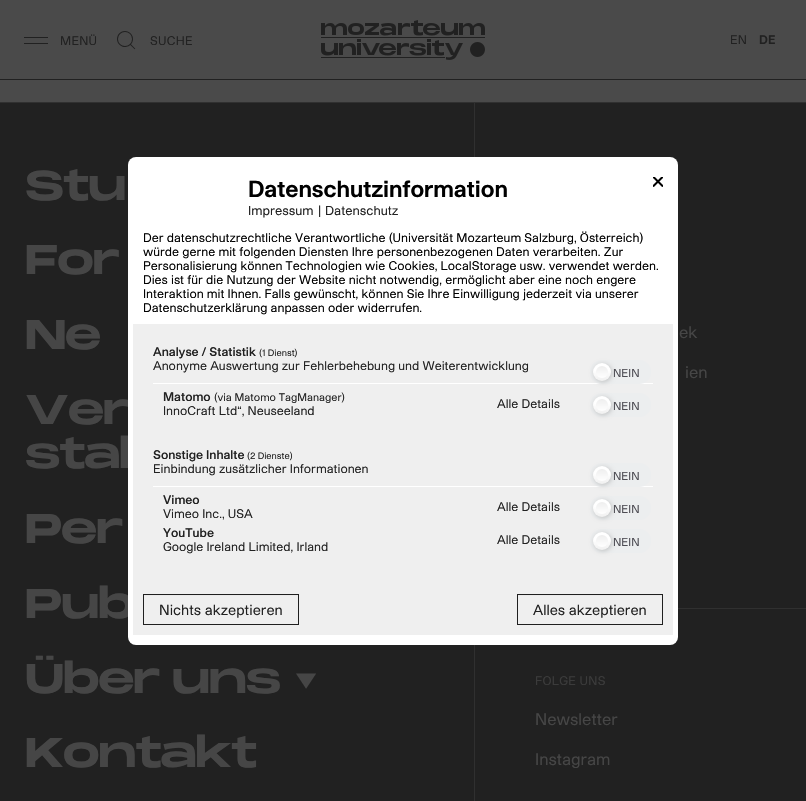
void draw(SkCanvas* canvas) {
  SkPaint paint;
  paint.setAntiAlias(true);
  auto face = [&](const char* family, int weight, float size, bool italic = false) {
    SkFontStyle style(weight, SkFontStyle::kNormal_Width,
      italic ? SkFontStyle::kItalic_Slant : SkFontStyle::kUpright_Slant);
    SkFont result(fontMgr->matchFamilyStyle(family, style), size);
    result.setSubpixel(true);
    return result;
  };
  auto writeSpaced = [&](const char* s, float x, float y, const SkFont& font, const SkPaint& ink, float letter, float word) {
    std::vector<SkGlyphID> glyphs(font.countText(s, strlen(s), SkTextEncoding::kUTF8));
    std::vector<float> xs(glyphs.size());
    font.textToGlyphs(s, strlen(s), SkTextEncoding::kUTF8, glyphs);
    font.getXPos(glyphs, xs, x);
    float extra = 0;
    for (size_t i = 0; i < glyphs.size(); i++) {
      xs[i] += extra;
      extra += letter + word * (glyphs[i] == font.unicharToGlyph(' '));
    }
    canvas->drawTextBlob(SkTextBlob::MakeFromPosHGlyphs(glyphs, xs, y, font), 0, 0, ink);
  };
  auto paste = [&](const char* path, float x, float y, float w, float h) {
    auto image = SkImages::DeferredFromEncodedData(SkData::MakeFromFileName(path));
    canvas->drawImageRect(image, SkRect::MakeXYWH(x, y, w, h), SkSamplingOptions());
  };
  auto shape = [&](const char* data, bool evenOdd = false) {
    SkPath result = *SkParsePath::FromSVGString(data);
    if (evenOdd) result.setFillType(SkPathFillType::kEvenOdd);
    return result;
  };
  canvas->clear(0xff4a4a4a);
  {
    const struct { float x, y, w, h; SkColor color; } items[] = {
      {0, 79, 806, 1, 0xff212121},
      {24, 37, 24, 1, 0xff212121},
      {24, 43, 24, 1, 0xff212121},
    };
    for (auto [x, y, w, h, color] : items) {
      paint.setColor(color);
      canvas->drawRect(SkRect::MakeXYWH(x, y, w, h), paint);
    }
  }
  paste("img/1.png", 117, 31, 19, 19);
  paste("img/2.png", 321, 20, 164, 40);
  {
    const struct { float x, y, w, h; SkColor color; } items[] = {
      {0, 103, 806, 698, 0xff212121},
      {0, 102, 806, 1, 0xff303030},
      {474, 103, 1, 698, 0xff303030},
    };
    for (auto [x, y, w, h, color] : items) {
      paint.setColor(color);
      canvas->drawRect(SkRect::MakeXYWH(x, y, w, h), paint);
    }
  }
  paste("img/3.png", 296, 673, 20, 16);
  canvas->drawRect(SkRect::MakeXYWH(678, 608, 128, 1), paint);
  auto f0 = face("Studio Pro", 400, 12);
  paint.setColor(0xff212121);
  {
    const struct { const char* s; float x, y; } items[] = {
      {"MENÜ", 60, 45},
      {"SUCHE", 150, 45},
      {"EN", 730, 44},
    };
    for (auto [s, x, y] : items) {
      writeSpaced(s, x, y, f0, paint, 0.25f, 0);
    }
  }
  auto f1 = face("Studio Pro", 700, 12);
  writeSpaced("DE", 759, 44, f1, paint, 0.25f, 0);
  auto f2 = face("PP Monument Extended", 700, 40.5f);
  paint.setColor(0xff464646);
  {
    const struct { const char* s; float x, y; } items[] = {
      {"Stu", 24, 200},
      {"For", 24, 274},
      {"Ne", 24, 349},
      {"Ver", 24, 424},
      {"stal", 24, 468},
      {"Per", 24, 543},
      {"Pub", 24, 618},
      {"Über uns", 24, 693},
      {"Kontakt", 24, 767},
    };
    for (auto [s, x, y] : items) {
      writeSpaced(s, x, y, f2, paint, -3.25f, 0);
    }
  }
  auto f3 = face("Studio Pro", 400, 16);
  canvas->drawString("ek", 679, 338, f3, paint);
  canvas->drawString("ien", 685, 378, f3, paint);
  paint.setColor(0xff3b3b3b);
  writeSpaced("FOLGE UNS", 535, 685, f0, paint, 0.25f, 0);
  paint.setColor(0xff464646);
  canvas->drawString("Newsletter", 535, 725, f3, paint);
  canvas->drawString("Instagram", 535, 765, f3, paint);
  paint.setColor(0xffffffff);
  canvas->drawRoundRect(SkRect::MakeXYWH(128, 157, 550, 488), 8, 8, paint);
  auto f4 = face("Studio Pro", 700, 22.4f);
  paint.setColor(0xff000000);
  canvas->drawString("Datenschutzinformation", 248, 197, f4, paint);
  canvas->save();
  canvas->clipRect(SkRect::MakeXYWH(653, 177, 10, 10));
  paint.setStroke(true);
  paint.setStrokeWidth(2);
  canvas->drawPath(shape("M653 176.5L663 186.5M653 186.5L663 176.5"), paint);
  canvas->restore();
  auto f5 = face("Studio Pro", 400, 12.5f);
  paint.setStroke(false);
  paint.setColor(0xff212121);
  {
    const struct { const char* s; float x, y; } items[] = {
      {"Impressum", 248, 215},
      {"|", 318, 215},
      {"Datenschutz", 325, 215},
    };
    for (auto [s, x, y] : items) {
      canvas->drawString(s, x, y, f5, paint);
    }
  }
  paint.setColor(0xff000000);
  {
    const struct { const char* s; float x, y; } items[] = {
      {"Der datenschutzrechtliche Verantwortliche (Universität Mozarteum Salzburg, Österreich)", 143, 242},
      {"würde gerne mit folgenden Diensten Ihre personenbezogenen Daten verarbeiten. Zur", 143, 256},
      {"Personalisierung können Technologien wie Cookies, LocalStorage usw. verwendet werden.", 143, 270},
      {"Dies ist für die Nutzung der Website nicht notwendig, ermöglicht aber eine noch engere", 143, 284},
      {"Interaktion mit Ihnen. Falls gewünscht, können Sie Ihre Einwilligung jederzeit via unserer", 143, 298},
      {"Datenschutzerklärung anpassen oder widerrufen.", 143, 312},
    };
    for (auto [s, x, y] : items) {
      canvas->drawString(s, x, y, f0, paint);
    }
  }
  paint.setColor(0xffefefef);
  canvas->drawRect(SkRect::MakeXYWH(133, 324, 540, 311), paint);
  auto f6 = face("Studio Pro", 600, 12);
  paint.setColor(0xff212121);
  canvas->drawString("Analyse / Statistik", 153, 356, f6, paint);
  auto f7 = face("Studio Pro", 400, 9);
  canvas->drawString("(1 Dienst)", 259, 356, f7, paint);
  canvas->drawString("Anonyme Auswertung zur Fehlerbehebung und Weiterentwicklung", 153, 370, f0, paint);
  paint.setColor(0xffffffff);
  canvas->drawRect(SkRect::MakeXYWH(153, 383, 500, 1), paint);
  paint.setColor(0xffeceeef);
  canvas->drawRoundRect(SkRect::MakeXYWH(590, 360, 61, 24), 12, 12, paint);
  paint.setColor(0x33000000);
  paint.setMaskFilter(SkMaskFilter::MakeBlur(kNormal_SkBlurStyle, 2.5f));
  canvas->drawRoundRect(SkRect::MakeXYWH(594, 364, 18, 18), 9, 9, paint);
  paint.setMaskFilter(nullptr);
  {
    const SkColor colors[] = {0xffffffff, 0xfff0f0f0};
    const float stops[] = {0.4f, 1};
    const SkPoint ends[] = {{602, 363}, {602, 381}};
    paint.setShader(SkGradientShader::MakeLinear(ends, colors, stops, 2, SkTileMode::kClamp));
    paint.setAlpha(255);
  }
  canvas->drawCircle(602, 372, 9, paint);
  {
    const SkColor colors[] = {0xffeeeeee, 0xffffffff};
    const float stops[] = {0, 1};
    const SkPoint ends[] = {{602, 366}, {602, 378}};
    paint.setShader(SkGradientShader::MakeLinear(ends, colors, stops, 2, SkTileMode::kClamp));
    paint.setAlpha(255);
  }
  canvas->drawCircle(602, 372, 6, paint);
  auto f8 = face("Studio Pro", 400, 11);
  paint.setShader(nullptr);
  paint.setColor(0xff4d4c53);
  canvas->drawString("NEIN", 613, 377, f8, paint);
  paint.setColor(0xff212121);
  canvas->drawString("Matomo", 163, 401, f6, paint);
  auto f9 = face("Studio Pro", 400, 10.5f);
  canvas->drawString("(via Matomo TagManager)", 214, 401, f9, paint);
  canvas->drawString("InnoCraft Ltd“, Neuseeland", 163, 415, f0, paint);
  canvas->drawString("Alle Details", 497, 408, f0, paint);
  paint.setColor(0xffeceeef);
  canvas->drawRoundRect(SkRect::MakeXYWH(590, 393, 61, 24), 12, 12, paint);
  paint.setColor(0x33000000);
  paint.setMaskFilter(SkMaskFilter::MakeBlur(kNormal_SkBlurStyle, 2.5f));
  canvas->drawRoundRect(SkRect::MakeXYWH(594, 397, 18, 18), 9, 9, paint);
  paint.setMaskFilter(nullptr);
  {
    const SkColor colors[] = {0xffffffff, 0xfff0f0f0};
    const float stops[] = {0.4f, 1};
    const SkPoint ends[] = {{602, 396}, {602, 414}};
    paint.setShader(SkGradientShader::MakeLinear(ends, colors, stops, 2, SkTileMode::kClamp));
    paint.setAlpha(255);
  }
  canvas->drawCircle(602, 405, 9, paint);
  {
    const SkColor colors[] = {0xffeeeeee, 0xffffffff};
    const float stops[] = {0, 1};
    const SkPoint ends[] = {{602, 399}, {602, 411}};
    paint.setShader(SkGradientShader::MakeLinear(ends, colors, stops, 2, SkTileMode::kClamp));
    paint.setAlpha(255);
  }
  canvas->drawCircle(602, 405, 6, paint);
  paint.setShader(nullptr);
  paint.setColor(0xff4d4c53);
  canvas->drawString("NEIN", 613, 410, f8, paint);
  paint.setColor(0xff212121);
  canvas->drawString("Sonstige Inhalte", 153, 459, f6, paint);
  canvas->drawString("(2 Dienste)", 247, 459, f7, paint);
  canvas->drawString("Einbindung zusätzlicher Informationen", 153, 473, f0, paint);
  paint.setColor(0xffffffff);
  canvas->drawRect(SkRect::MakeXYWH(153, 486, 500, 1), paint);
  paint.setColor(0xffeceeef);
  canvas->drawRoundRect(SkRect::MakeXYWH(590, 463, 61, 24), 12, 12, paint);
  paint.setColor(0x33000000);
  paint.setMaskFilter(SkMaskFilter::MakeBlur(kNormal_SkBlurStyle, 2.5f));
  canvas->drawRoundRect(SkRect::MakeXYWH(594, 467, 18, 18), 9, 9, paint);
  paint.setMaskFilter(nullptr);
  {
    const SkColor colors[] = {0xffffffff, 0xfff0f0f0};
    const float stops[] = {0.4f, 1};
    const SkPoint ends[] = {{602, 466}, {602, 484}};
    paint.setShader(SkGradientShader::MakeLinear(ends, colors, stops, 2, SkTileMode::kClamp));
    paint.setAlpha(255);
  }
  canvas->drawCircle(602, 475, 9, paint);
  {
    const SkColor colors[] = {0xffeeeeee, 0xffffffff};
    const float stops[] = {0, 1};
    const SkPoint ends[] = {{602, 469}, {602, 481}};
    paint.setShader(SkGradientShader::MakeLinear(ends, colors, stops, 2, SkTileMode::kClamp));
    paint.setAlpha(255);
  }
  canvas->drawCircle(602, 475, 6, paint);
  paint.setShader(nullptr);
  paint.setColor(0xff4d4c53);
  canvas->drawString("NEIN", 613, 480, f8, paint);
  paint.setColor(0xff212121);
  canvas->drawString("Vimeo", 163, 504, f6, paint);
  canvas->drawString("Vimeo Inc., USA", 163, 518, f0, paint);
  canvas->drawString("Alle Details", 497, 511, f0, paint);
  paint.setColor(0xffeceeef);
  canvas->drawRoundRect(SkRect::MakeXYWH(590, 496, 61, 24), 12, 12, paint);
  paint.setColor(0x33000000);
  paint.setMaskFilter(SkMaskFilter::MakeBlur(kNormal_SkBlurStyle, 2.5f));
  canvas->drawRoundRect(SkRect::MakeXYWH(594, 500, 18, 18), 9, 9, paint);
  paint.setMaskFilter(nullptr);
  {
    const SkColor colors[] = {0xffffffff, 0xfff0f0f0};
    const float stops[] = {0.4f, 1};
    const SkPoint ends[] = {{602, 499}, {602, 517}};
    paint.setShader(SkGradientShader::MakeLinear(ends, colors, stops, 2, SkTileMode::kClamp));
    paint.setAlpha(255);
  }
  canvas->drawCircle(602, 508, 9, paint);
  {
    const SkColor colors[] = {0xffeeeeee, 0xffffffff};
    const float stops[] = {0, 1};
    const SkPoint ends[] = {{602, 502}, {602, 514}};
    paint.setShader(SkGradientShader::MakeLinear(ends, colors, stops, 2, SkTileMode::kClamp));
    paint.setAlpha(255);
  }
  canvas->drawCircle(602, 508, 6, paint);
  paint.setShader(nullptr);
  paint.setColor(0xff4d4c53);
  canvas->drawString("NEIN", 613, 513, f8, paint);
  paint.setColor(0xff212121);
  canvas->drawString("YouTube", 163, 537, f6, paint);
  canvas->drawString("Google Ireland Limited, Irland", 163, 551, f0, paint);
  canvas->drawString("Alle Details", 497, 544, f0, paint);
  paint.setColor(0xffeceeef);
  canvas->drawRoundRect(SkRect::MakeXYWH(590, 529, 61, 24), 12, 12, paint);
  paint.setColor(0x33000000);
  paint.setMaskFilter(SkMaskFilter::MakeBlur(kNormal_SkBlurStyle, 2.5f));
  canvas->drawRoundRect(SkRect::MakeXYWH(594, 533, 18, 18), 9, 9, paint);
  paint.setMaskFilter(nullptr);
  {
    const SkColor colors[] = {0xffffffff, 0xfff0f0f0};
    const float stops[] = {0.4f, 1};
    const SkPoint ends[] = {{602, 532}, {602, 550}};
    paint.setShader(SkGradientShader::MakeLinear(ends, colors, stops, 2, SkTileMode::kClamp));
    paint.setAlpha(255);
  }
  canvas->drawCircle(602, 541, 9, paint);
  {
    const SkColor colors[] = {0xffeeeeee, 0xffffffff};
    const float stops[] = {0, 1};
    const SkPoint ends[] = {{602, 535}, {602, 547}};
    paint.setShader(SkGradientShader::MakeLinear(ends, colors, stops, 2, SkTileMode::kClamp));
    paint.setAlpha(255);
  }
  canvas->drawCircle(602, 541, 6, paint);
  paint.setShader(nullptr);
  paint.setColor(0xff4d4c53);
  canvas->drawString("NEIN", 613, 546, f8, paint);
  paint.setColor(0xffeaeaea);
  canvas->drawRect(SkRect::MakeXYWH(144, 595, 154, 1), paint);
  paint.setStroke(true);
  paint.setStrokeWidth(1);
  paint.setColor(0xff1f1f1f);
  canvas->drawRect(SkRect::MakeXYWH(143.5f, 594.5f, 155, 30), paint);
  auto f10 = face("Studio Pro", 400, 14);
  paint.setStroke(false);
  paint.setColor(0xff212121);
  canvas->drawString("Nichts akzeptieren", 159, 615, f10, paint);
  paint.setColor(0xffeaeaea);
  canvas->drawRect(SkRect::MakeXYWH(518, 595, 144, 1), paint);
  paint.setStroke(true);
  paint.setColor(0xff1f1f1f);
  canvas->drawRect(SkRect::MakeXYWH(517.5f, 594.5f, 145, 30), paint);
  paint.setStroke(false);
  paint.setColor(0xff212121);
  canvas->drawString("Alles akzeptieren", 533, 615, f10, paint);
}
